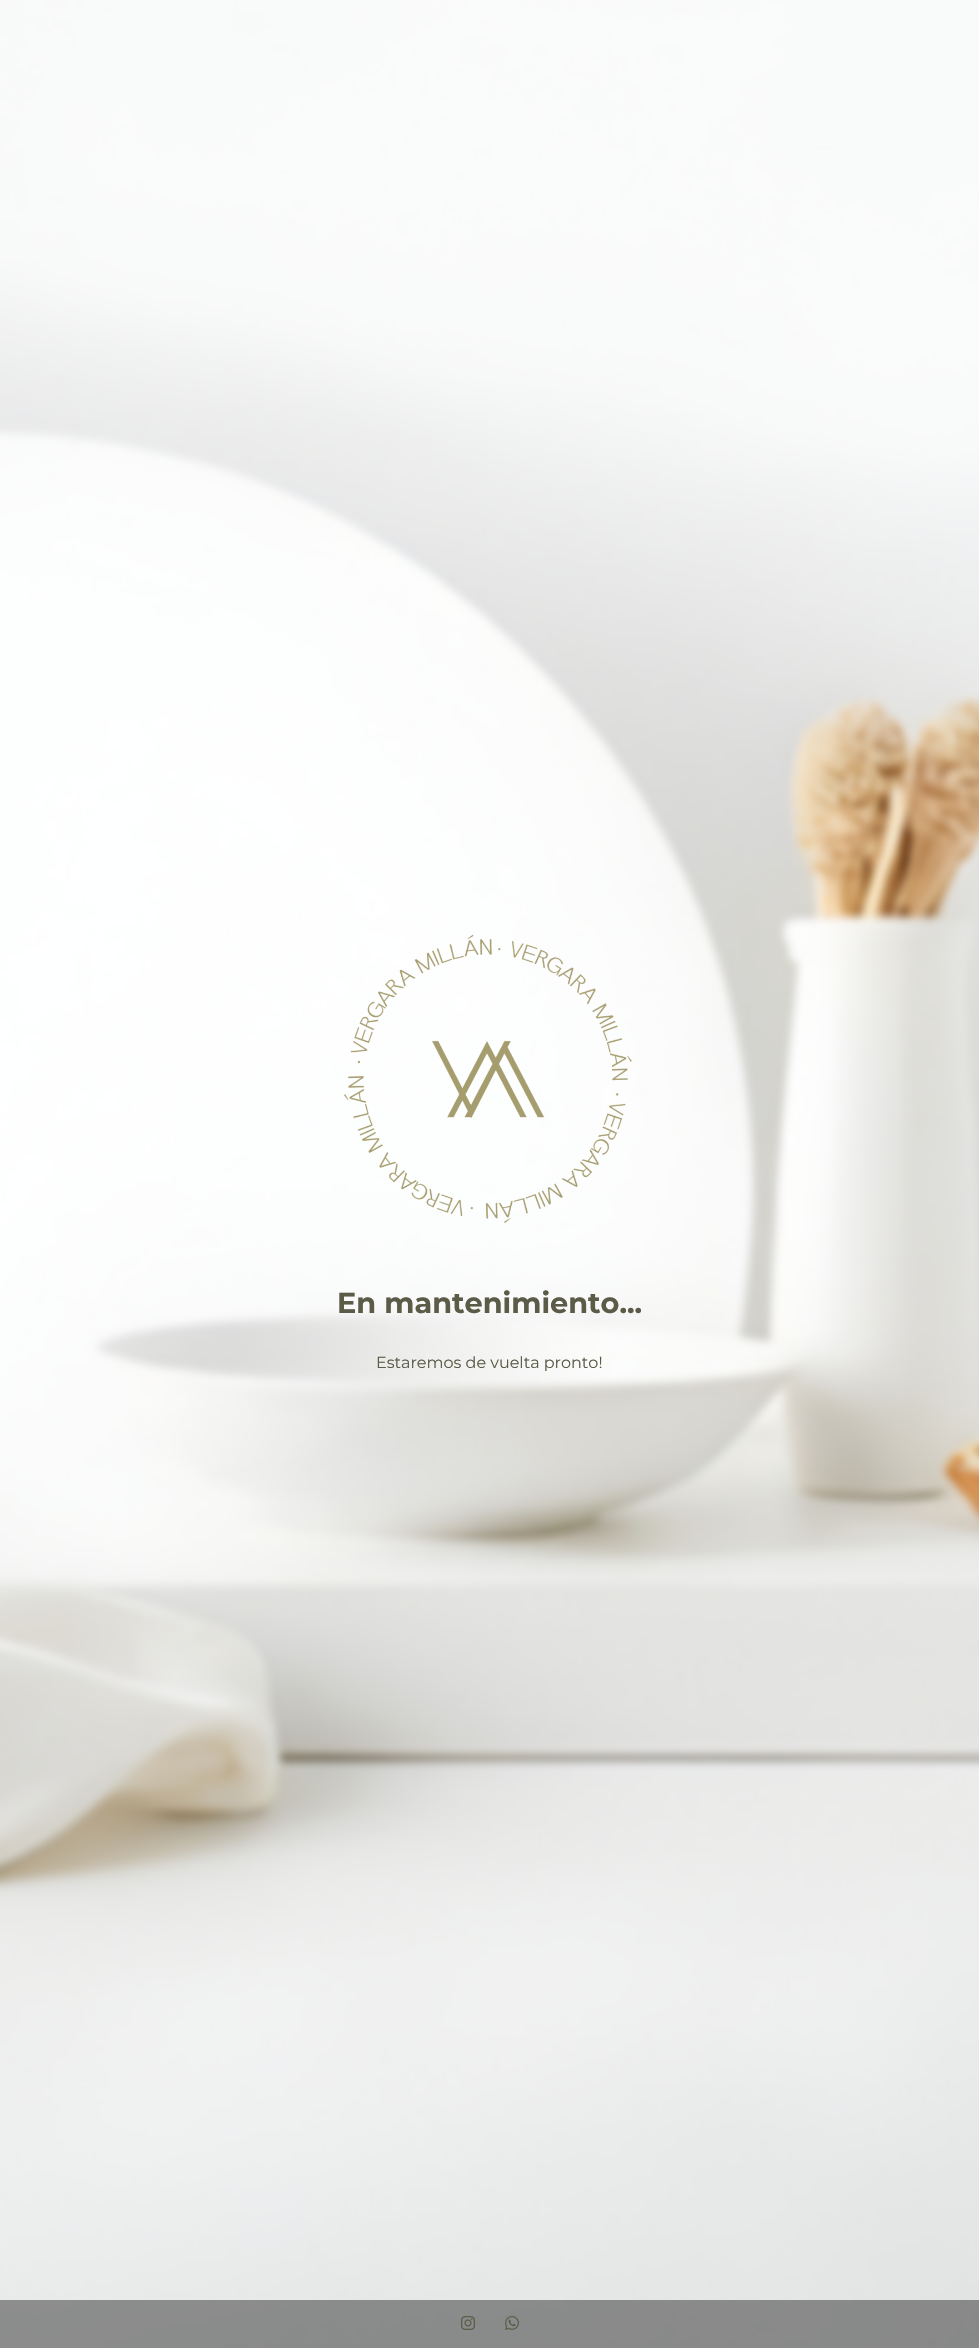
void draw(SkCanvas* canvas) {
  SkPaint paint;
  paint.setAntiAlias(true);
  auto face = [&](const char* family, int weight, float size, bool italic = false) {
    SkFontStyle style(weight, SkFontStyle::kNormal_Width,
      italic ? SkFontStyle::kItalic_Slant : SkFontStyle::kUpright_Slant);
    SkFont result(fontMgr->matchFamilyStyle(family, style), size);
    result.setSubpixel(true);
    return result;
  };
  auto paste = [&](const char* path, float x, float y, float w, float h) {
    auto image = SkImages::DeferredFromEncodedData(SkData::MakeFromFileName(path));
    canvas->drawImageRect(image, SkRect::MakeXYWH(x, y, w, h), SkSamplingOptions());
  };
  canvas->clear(0xffffffff);
  paste("img/1.png", 0, 0, 979, 2348);
  paste("img/2.png", 344, 934, 288, 289);
  paint.setColor(0x66000000);
  canvas->drawRect(SkRect::MakeXYWH(0, 2300, 979, 48), paint);
  paste("img/3.png", 461, 2316, 14, 14);
  paste("img/4.png", 505, 2316, 14, 14);
  auto f0 = face("Montserrat", 700, 28.75f);
  paint.setColor(0xff5b5b48);
  canvas->drawString("En mantenimiento...", 337, 1313, f0, paint);
  auto f1 = face("Montserrat", 400, 16);
  canvas->drawString("Estaremos de vuelta pronto!", 376, 1368, f1, paint);
}
